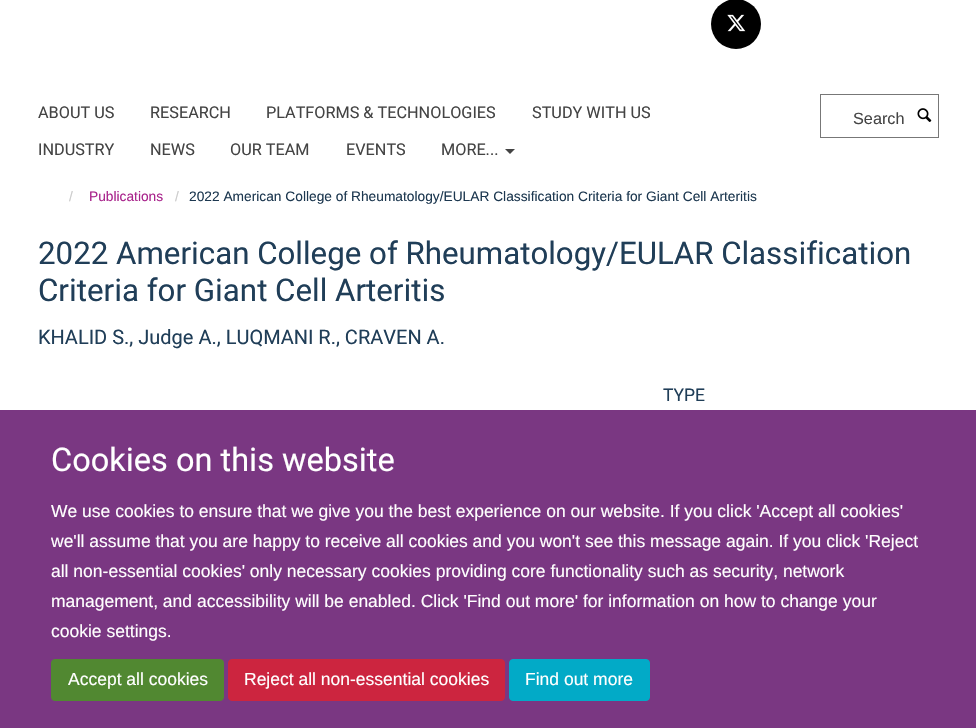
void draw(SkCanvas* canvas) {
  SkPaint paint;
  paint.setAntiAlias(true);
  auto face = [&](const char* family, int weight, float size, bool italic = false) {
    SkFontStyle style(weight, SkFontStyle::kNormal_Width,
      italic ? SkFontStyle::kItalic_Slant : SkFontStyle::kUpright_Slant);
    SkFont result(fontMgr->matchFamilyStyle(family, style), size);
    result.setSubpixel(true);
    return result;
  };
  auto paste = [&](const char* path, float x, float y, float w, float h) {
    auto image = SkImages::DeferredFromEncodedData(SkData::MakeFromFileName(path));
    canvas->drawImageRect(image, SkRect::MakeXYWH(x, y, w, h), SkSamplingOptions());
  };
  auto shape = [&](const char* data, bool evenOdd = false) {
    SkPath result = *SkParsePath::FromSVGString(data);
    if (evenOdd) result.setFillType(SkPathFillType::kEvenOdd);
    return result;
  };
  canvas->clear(0xffffffff);
  paint.setColor(0xff000000);
  canvas->drawCircle(736, 24, 25, paint);
  paste("img/1.png", 727, 14, 19, 18);
  paint.setColor(0xff444444);
  canvas->drawPath(shape("M505 149H515L510 154Z"), paint);
  paint.setStroke(true);
  paint.setStrokeWidth(1);
  paint.setColor(0xff777777);
  canvas->drawRect(SkRect::MakeXYWH(820.5f, 94.5f, 118, 43), paint);
  paste("img/2.png", 917, 108, 15, 14);
  paint.setStroke(false);
  paint.setColor(0xff7a3782);
  canvas->drawRect(SkRect::MakeXYWH(0, 410, 976, 318), paint);
  paint.setColor(0xff518831);
  canvas->drawRoundRect(SkRect::MakeXYWH(51.5f, 659.5f, 172, 41), 3.5f, 3.5f, paint);
  paint.setStroke(true);
  canvas->drawRoundRect(SkRect::MakeXYWH(51.5f, 659.5f, 172, 41), 3.5f, 3.5f, paint);
  paint.setStroke(false);
  paint.setColor(0xffcc253f);
  canvas->drawRoundRect(SkRect::MakeXYWH(228.5f, 659.5f, 276, 41), 3.5f, 3.5f, paint);
  paint.setStroke(true);
  canvas->drawRoundRect(SkRect::MakeXYWH(228.5f, 659.5f, 276, 41), 3.5f, 3.5f, paint);
  paint.setStroke(false);
  paint.setColor(0xff02aac7);
  canvas->drawRoundRect(SkRect::MakeXYWH(509.5f, 659.5f, 140, 41), 3.5f, 3.5f, paint);
  paint.setStroke(true);
  canvas->drawRoundRect(SkRect::MakeXYWH(509.5f, 659.5f, 140, 41), 3.5f, 3.5f, paint);
  auto f0 = face("Heebo", 400, 16.25f);
  paint.setStroke(false);
  paint.setColor(0xff444444);
  {
    const struct { const char* s; float x, y; } items[] = {
      {"ABOUT US", 38, 118},
      {"RESEARCH", 150, 118},
      {"PLATFORMS & TECHNOLOGIES", 266, 118},
      {"STUDY WITH US", 532, 118},
      {"INDUSTRY", 38, 155},
      {"NEWS", 150, 155},
      {"OUR TEAM", 230, 155},
      {"EVENTS", 346, 155},
      {"MORE...", 441, 155},
    };
    for (auto [s, x, y] : items) {
      canvas->drawString(s, x, y, f0, paint);
    }
  }
  auto f1 = face("Liberation Sans", 400, 16.25f);
  canvas->drawString("Search", 853, 124, f1, paint);
  auto f2 = face("Liberation Sans", 400, 13.75f);
  paint.setColor(0xffcccccc);
  canvas->drawString("/", 69, 201, f2, paint);
  paint.setColor(0xffa8228b);
  canvas->drawString("Publications", 89, 201, f2, paint);
  paint.setColor(0xffcccccc);
  canvas->drawString("/", 175, 201, f2, paint);
  paint.setColor(0xff1d3850);
  canvas->drawString("2022 American College of Rheumatology/EULAR Classification Criteria for Giant Cell Arteritis", 189, 201, f2, paint);
  auto f3 = face("Heebo", 400, 31.25f);
  paint.setColor(0xff203e58);
  canvas->drawString("2022 American College of Rheumatology/EULAR Classification", 38, 264, f3, paint);
  canvas->drawString("Criteria for Giant Cell Arteritis", 38, 301, f3, paint);
  auto f4 = face("Heebo", 400, 20);
  canvas->drawString("KHALID S., Judge A., LUQMANI R., CRAVEN A.", 38, 344, f4, paint);
  auto f5 = face("Heebo", 400, 17.5f);
  canvas->drawString("TYPE", 663, 401, f5, paint);
  auto f6 = face("Heebo", 400, 32.5f);
  paint.setColor(0xffffffff);
  canvas->drawString("Cookies on this website", 51, 471, f6, paint);
  auto f7 = face("Liberation Sans", 400, 17.5f);
  {
    const struct { const char* s; float x, y; } items[] = {
      {"We use cookies to ensure that we give you the best experience on our website. If you click 'Accept all cookies'", 51, 517},
      {"we'll assume that you are happy to receive all cookies and you won't see this message again. If you click 'Reject", 51, 547},
      {"all non-essential cookies' only necessary cookies providing core functionality such as security, network", 51, 577},
      {"management, and accessibility will be enabled. Click 'Find out more' for information on how to change your", 51, 607},
      {"cookie settings.", 51, 637},
      {"Accept all cookies", 68, 685},
      {"Reject all non-essential cookies", 244, 685},
      {"Find out more", 525, 685},
    };
    for (auto [s, x, y] : items) {
      canvas->drawString(s, x, y, f7, paint);
    }
  }
}
